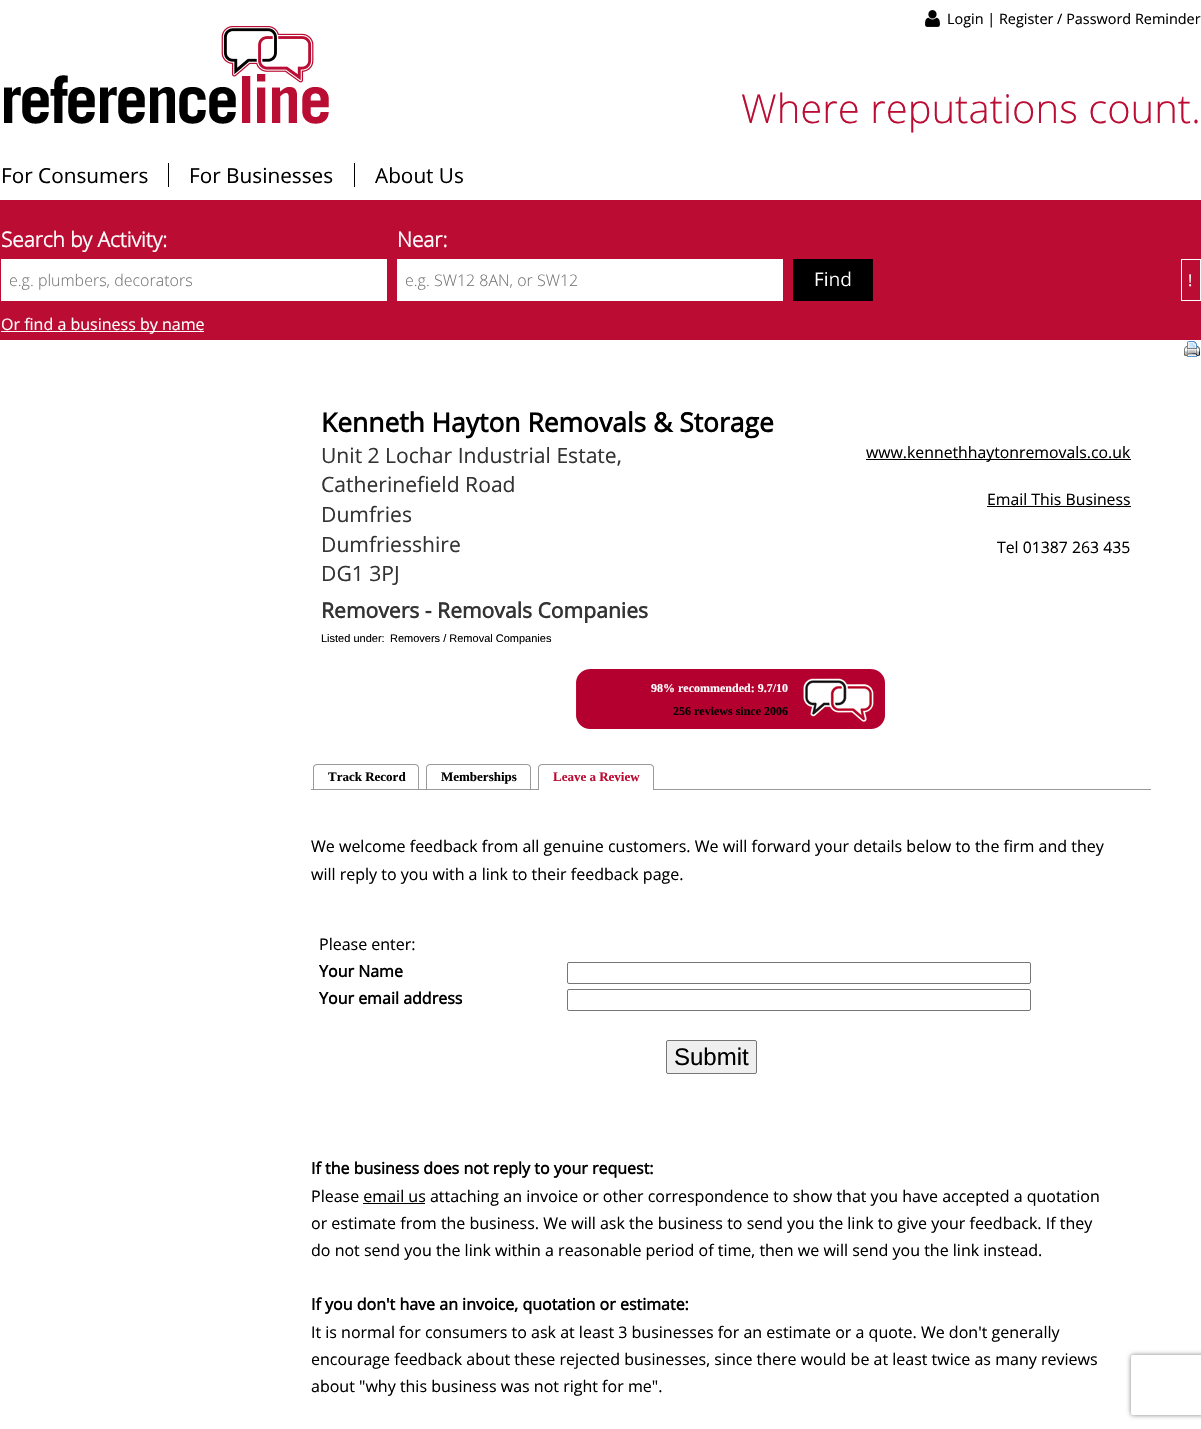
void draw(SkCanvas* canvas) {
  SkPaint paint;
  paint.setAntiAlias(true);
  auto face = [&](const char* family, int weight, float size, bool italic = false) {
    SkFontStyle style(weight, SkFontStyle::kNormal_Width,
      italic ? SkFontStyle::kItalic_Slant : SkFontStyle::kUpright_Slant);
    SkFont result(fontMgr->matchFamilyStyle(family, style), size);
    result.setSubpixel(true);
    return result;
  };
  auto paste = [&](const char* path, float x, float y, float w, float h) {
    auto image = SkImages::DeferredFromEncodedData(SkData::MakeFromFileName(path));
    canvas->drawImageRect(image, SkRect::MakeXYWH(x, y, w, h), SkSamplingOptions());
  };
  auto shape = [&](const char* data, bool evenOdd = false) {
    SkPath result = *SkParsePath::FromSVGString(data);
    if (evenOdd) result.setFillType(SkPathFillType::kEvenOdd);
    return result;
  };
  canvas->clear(0xffffffff);
  paste("img/1.png", 4, 26, 325, 98);
  paste("img/2.png", 925, 10, 15, 17);
  {
    const struct { float x, y, w, h; SkColor color; } items[] = {
      {168, 163, 1, 24, 0xff000000},
      {354, 163, 1, 24, 0xff000000},
      {0, 200, 1201, 140, 0xffbb0d33},
      {1, 259, 386, 42, 0xffffffff},
      {397, 259, 386, 42, 0xffffffff},
    };
    for (auto [x, y, w, h, color] : items) {
      paint.setColor(color);
      canvas->drawRect(SkRect::MakeXYWH(x, y, w, h), paint);
    }
  }
  paste("img/3.png", 793, 259, 80, 42);
  paint.setStroke(true);
  paint.setStrokeWidth(1);
  canvas->drawRect(SkRect::MakeXYWH(1181.5f, 259.5f, 19, 41), paint);
  paint.setStroke(false);
  canvas->drawRect(SkRect::MakeXYWH(1, 331, 203, 1), paint);
  paste("img/4.png", 1184, 341, 16, 16);
  paint.setColor(0xff000000);
  canvas->drawRect(SkRect::MakeXYWH(866, 459, 265, 1), paint);
  canvas->drawRect(SkRect::MakeXYWH(987, 506, 144, 1), paint);
  paste("img/5.png", 576, 669, 309, 60);
  paint.setColor(0xff999999);
  canvas->drawRect(SkRect::MakeXYWH(311, 789, 840, 1), paint);
  paste("img/6.png", 313, 764, 18, 25);
  paste("img/7.png", 331, 764, 88, 25);
  paste("img/6.png", 426, 764, 18, 25);
  paste("img/8.png", 444, 764, 87, 25);
  paste("img/9.png", 538, 764, 18, 26);
  paste("img/10.png", 556, 764, 98, 26);
  paint.setStroke(true);
  paint.setColor(0xff767676);
  canvas->drawRoundRect(SkRect::MakeXYWH(567.5f, 962.5f, 463, 21), 1.5f, 1.5f, paint);
  canvas->drawRoundRect(SkRect::MakeXYWH(567.5f, 989.5f, 463, 21), 1.5f, 1.5f, paint);
  paint.setStroke(false);
  paint.setColor(0xffefefef);
  canvas->drawRoundRect(SkRect::MakeXYWH(666.5f, 1040.5f, 90, 33), 1.5f, 1.5f, paint);
  paint.setStroke(true);
  paint.setColor(0xff767676);
  canvas->drawRoundRect(SkRect::MakeXYWH(666.5f, 1040.5f, 90, 33), 1.5f, 1.5f, paint);
  canvas->save();
  canvas->clipPath(shape("M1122 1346H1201V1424H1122ZM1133 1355H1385C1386 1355 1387 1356 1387 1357V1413C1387 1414 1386 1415 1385 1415H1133C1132 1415 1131 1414 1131 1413V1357C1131 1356 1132 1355 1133 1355Z", true), true);
  paint.setStroke(false);
  paint.setColor(0xff808080);
  paint.setMaskFilter(SkMaskFilter::MakeBlur(kNormal_SkBlurStyle, 2.5f));
  canvas->drawRoundRect(SkRect::MakeXYWH(1131, 1355, 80, 60), 2, 2, paint);
  paint.setMaskFilter(nullptr);
  canvas->restore();
  paint.setColor(0xff000000);
  canvas->drawRect(SkRect::MakeXYWH(363, 1203, 62, 1), paint);
  auto f0 = face("Open Sans", 400, 14.4f);
  canvas->drawString("Login | Register / Password Reminder", 947, 24, f0, paint);
  auto f1 = face("Open Sans", 300, 40);
  paint.setColor(0xffbb0d33);
  canvas->drawString("Where reputations count.", 741, 123, f1, paint);
  auto f2 = face("Open Sans", 400, 20.75f);
  paint.setColor(0xff000000);
  {
    const struct { const char* s; float x, y; } items[] = {
      {"For Consumers", 1, 183},
      {"For Businesses", 189, 183},
      {"About Us", 375, 183},
    };
    for (auto [s, x, y] : items) {
      canvas->drawString(s, x, y, f2, paint);
    }
  }
  auto f3 = face("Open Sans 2", 700, 20.75f);
  paint.setColor(0xffffffff);
  canvas->drawString("Search by Activity:", 1, 247, f3, paint);
  auto f4 = face("Open Sans", 300, 16);
  paint.setColor(0xff757575);
  canvas->drawString("e.g. plumbers, decorators", 9, 286, f4, paint);
  paint.setColor(0xffffffff);
  canvas->drawString("Near:", 397, 247, f3, paint);
  paint.setColor(0xff757575);
  canvas->drawString("e.g. SW12 8AN, or SW12", 405, 286, f4, paint);
  auto f5 = face("Open Sans", 400, 16);
  paint.setColor(0xffffffff);
  canvas->drawString("!", 1188, 286, f5, paint);
  canvas->drawString("Or find a business by name", 1, 330, f5, paint);
  auto f6 = face("Open Sans", 700, 26.4f);
  paint.setColor(0xff000000);
  canvas->drawString("Kenneth Hayton Removals & Storage", 321, 432, f6, paint);
  auto f7 = face("Open Sans", 400, 21.1f);
  paint.setColor(0xff333333);
  {
    const struct { const char* s; float x, y; } items[] = {
      {"Unit 2 Lochar Industrial Estate,", 321, 463},
      {"Catherinefield Road", 321, 492},
      {"Dumfries", 321, 522},
      {"Dumfriesshire", 321, 552},
      {"DG1 3PJ", 321, 581},
    };
    for (auto [s, x, y] : items) {
      canvas->drawString(s, x, y, f7, paint);
    }
  }
  auto f8 = face("Open Sans", 700, 21.1f);
  canvas->drawString("Removers - Removals Companies", 321, 618, f8, paint);
  auto f9 = face("Open Sans", 400, 15.8f);
  paint.setColor(0xff000000);
  {
    const struct { const char* s; float x, y; } items[] = {
      {"www.kennethhaytonremovals.co.uk", 866, 458},
      {"Email This Business", 987, 505},
      {"Tel 01387 263 435", 997, 553},
    };
    for (auto [s, x, y] : items) {
      canvas->drawString(s, x, y, f9, paint);
    }
  }
  auto f10 = face("Liberation Sans", 400, 11);
  canvas->drawString("Listed under:", 321, 642, f10, paint);
  canvas->drawString("Removers / Removal Companies", 390, 642, f10, paint);
  auto f11 = face("Liberation Serif", 700, 12);
  paint.setColor(0xffffffff);
  canvas->drawString("98% recommended: 9.7/10", 651, 692, f11, paint);
  paint.setColor(0xff000000);
  canvas->drawString("256 reviews since 2006", 673, 715, f11, paint);
  auto f12 = face("Liberation Serif", 700, 13);
  canvas->drawString("Track Record", 328, 781, f12, paint);
  canvas->drawString("Memberships", 441, 781, f12, paint);
  paint.setColor(0xffbb0d33);
  canvas->drawString("Leave a Review", 553, 781, f12, paint);
  paint.setColor(0xff000000);
  {
    const struct { const char* s; float x, y; } items[] = {
      {"We welcome feedback from all genuine customers. We will forward your details below to the firm and they", 311, 852},
      {"will reply to you with a link to their feedback page.", 311, 880},
      {"Please enter:", 319, 950},
    };
    for (auto [s, x, y] : items) {
      canvas->drawString(s, x, y, f5, paint);
    }
  }
  auto f13 = face("Open Sans", 700, 16);
  canvas->drawString("Your Name", 319, 977, f13, paint);
  canvas->drawString("Your email address", 319, 1004, f13, paint);
  auto f14 = face("Liberation Sans", 400, 24);
  canvas->drawString("Submit", 674, 1065, f14, paint);
  canvas->drawString("If the business does not reply to your request:", 311, 1174, f13, paint);
  {
    const struct { const char* s; float x, y; } items[] = {
      {"Please email us attaching an invoice or other correspondence to show that you have accepted a quotation", 311, 1202},
      {"or estimate from the business. We will ask the business to send you the link to give your feedback. If they", 311, 1229},
      {"do not send you the link within a reasonable period of time, then we will send you the link instead.", 311, 1256},
    };
    for (auto [s, x, y] : items) {
      canvas->drawString(s, x, y, f5, paint);
    }
  }
  canvas->drawString("If you don't have an invoice, quotation or estimate:", 311, 1310, f13, paint);
  {
    const struct { const char* s; float x, y; } items[] = {
      {"It is normal for consumers to ask at least 3 businesses for an estimate or a quote. We don't generally", 311, 1338},
      {"encourage feedback about these rejected businesses, since there would be at least twice as many reviews", 311, 1365},
      {"about \"why this business was not right for me\".", 311, 1392},
    };
    for (auto [s, x, y] : items) {
      canvas->drawString(s, x, y, f5, paint);
    }
  }
}
